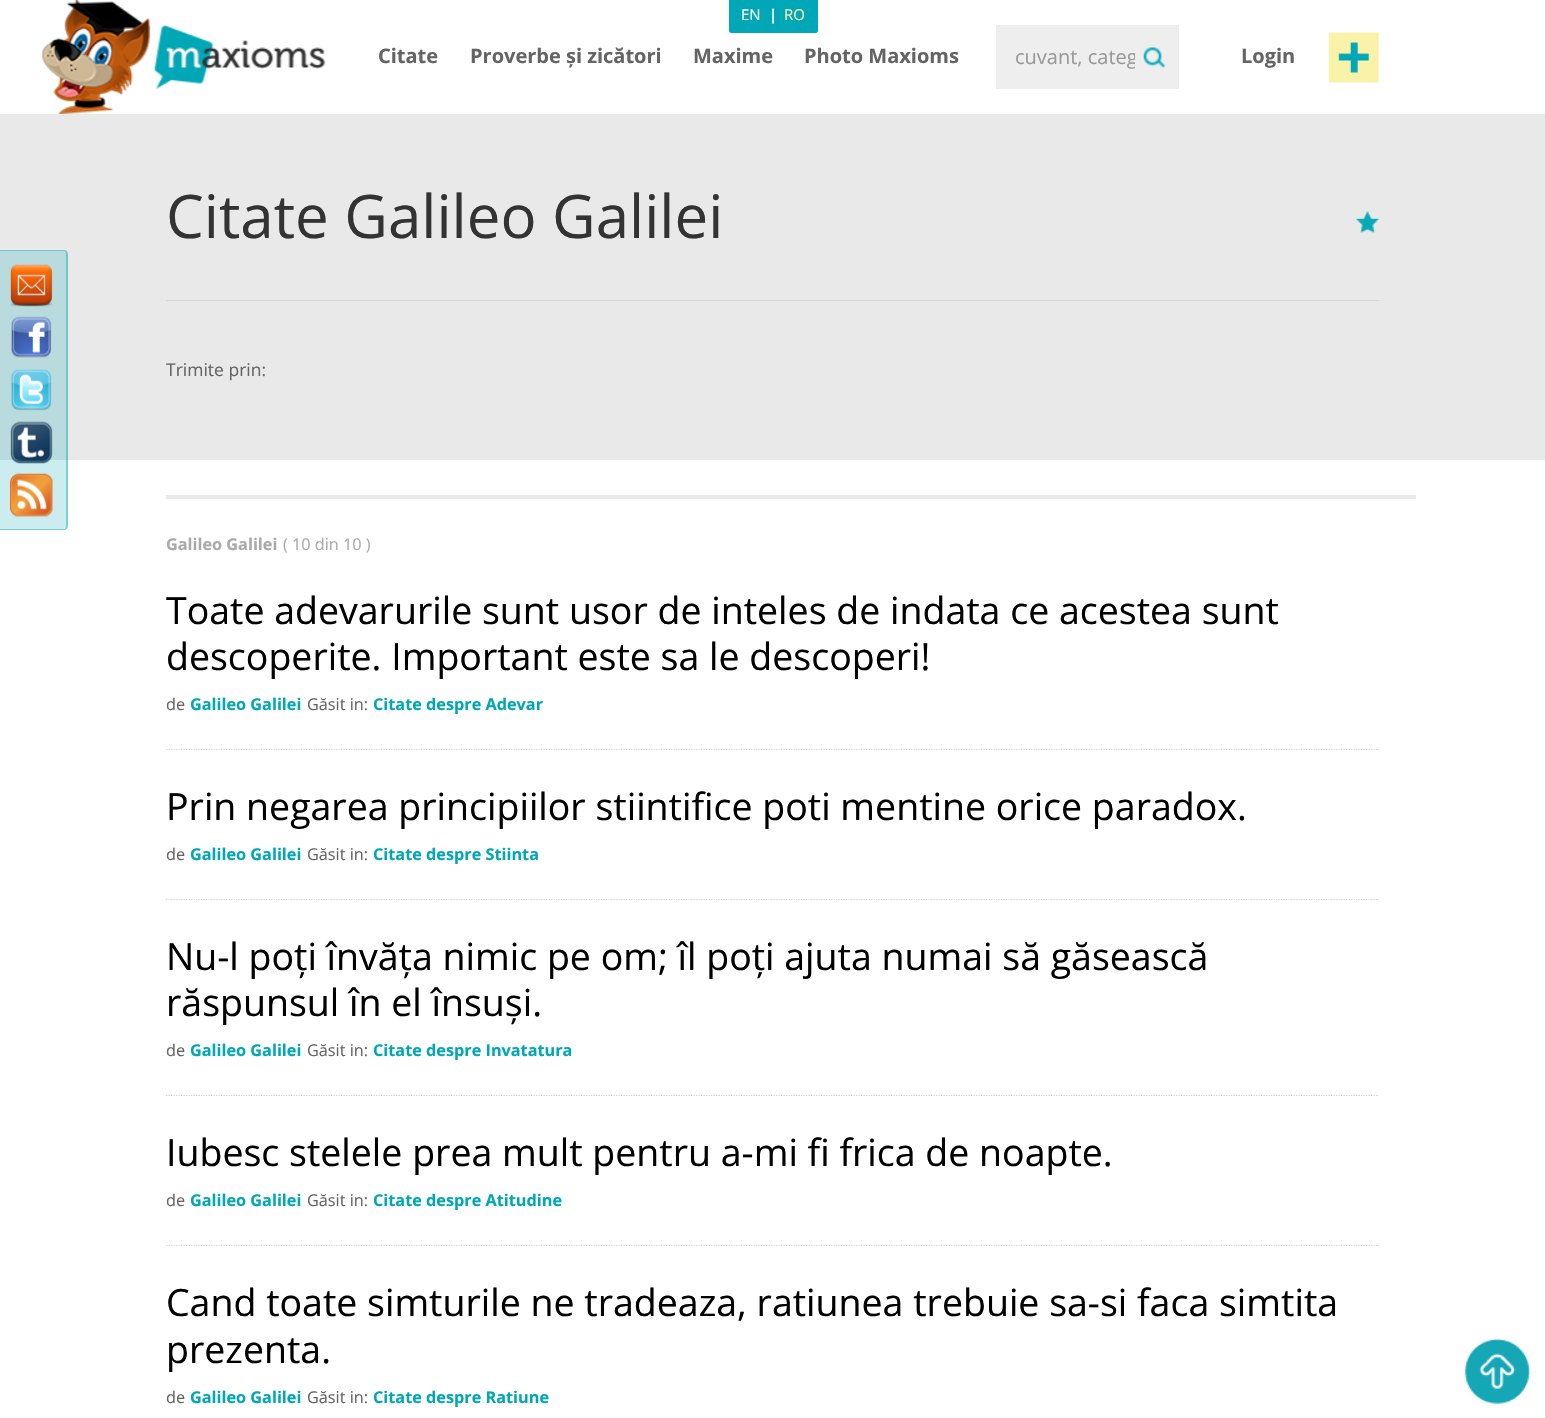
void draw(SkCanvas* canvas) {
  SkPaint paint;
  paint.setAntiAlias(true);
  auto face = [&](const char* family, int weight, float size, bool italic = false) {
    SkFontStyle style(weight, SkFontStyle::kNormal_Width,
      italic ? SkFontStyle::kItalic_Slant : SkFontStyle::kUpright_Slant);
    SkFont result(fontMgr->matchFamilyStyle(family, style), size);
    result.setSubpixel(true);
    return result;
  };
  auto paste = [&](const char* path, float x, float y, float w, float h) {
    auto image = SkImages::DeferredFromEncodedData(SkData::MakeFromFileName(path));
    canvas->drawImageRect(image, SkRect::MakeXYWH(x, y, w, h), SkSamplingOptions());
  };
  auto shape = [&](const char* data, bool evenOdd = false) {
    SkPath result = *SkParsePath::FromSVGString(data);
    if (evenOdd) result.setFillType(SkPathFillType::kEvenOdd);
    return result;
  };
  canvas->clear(0xffffffff);
  paste("img/1.png", 42, 0, 109, 114);
  paste("img/2.png", 153, 25, 173, 64);
  paint.setColor(0xff00a7b6);
  canvas->drawPath(shape("M729 0H818V30.5C818 32 817 33 815.5 33H731.5C730 33 729 32 729 30.5Z"), paint);
  paint.setColor(0xffeeeeee);
  canvas->drawRect(SkRect::MakeXYWH(996, 25, 183, 64), paint);
  paste("img/3.png", 1143, 47, 23, 21);
  paste("img/4.png", 1328, 32, 51, 51);
  paint.setColor(0xffe9e9e9);
  canvas->drawRect(SkRect::MakeXYWH(0, 114, 1545, 346), paint);
  paint.setColor(0xffd5d5d5);
  canvas->drawRect(SkRect::MakeXYWH(166, 300, 1213, 1), paint);
  paste("img/5.png", 1356, 211, 23, 22);
  paint.setColor(0x3300a7b6);
  canvas->drawPath(shape("M0 250H64C66 250 68 252 68 254V526C68 528 66 530 64 530H0Z"), paint);
  paint.setColor(0x6600a7b6);
  canvas->drawPath(shape("M0 250H64C66 250 68 252 68 254V526C68 528 66 530 64 530H0ZM0 251H64C65 251 66 252 66 254V526C66 528 65 529 64 529H0Z", true), paint);
  paste("img/6.png", 10, 264, 43, 43);
  paste("img/7.png", 11, 316, 41, 42);
  paste("img/8.png", 11, 369, 41, 42);
  paste("img/9.png", 10, 421, 43, 43);
  paste("img/10.png", 10, 473, 43, 44);
  paste("img/11.png", 1463, 1336, 69, 70);
  paint.setColor(0xffe9e9e9);
  canvas->drawRect(SkRect::MakeXYWH(166, 495, 1250, 4), paint);
  paint.setStroke(true);
  paint.setStrokeWidth(1.2f);
  paint.setColor(0xffd1d1d1);
  paint.setPathEffect(SkDashPathEffect::Make({{1.25f, 1.25f}}, 0));
  canvas->drawPath(shape("M166 749.5H1379"), paint);
  paint.setPathEffect(nullptr);
  paint.setPathEffect(SkDashPathEffect::Make({{1.25f, 1.25f}}, 0));
  canvas->drawPath(shape("M166 899.5H1379"), paint);
  paint.setPathEffect(nullptr);
  paint.setPathEffect(SkDashPathEffect::Make({{1.25f, 1.25f}}, 0));
  canvas->drawPath(shape("M166 1095.5H1379"), paint);
  paint.setPathEffect(nullptr);
  paint.setPathEffect(SkDashPathEffect::Make({{1.25f, 1.25f}}, 0));
  canvas->drawPath(shape("M166 1245.5H1379"), paint);
  paint.setPathEffect(nullptr);
  auto f0 = face("Open Sans", 400, 15);
  paint.setStroke(false);
  paint.setColor(0xffffffff);
  canvas->drawString("EN", 741, 20, f0, paint);
  auto f1 = face("Open Sans", 700, 15);
  canvas->drawString("|", 769, 20, f1, paint);
  paint.setColor(0xfff7f1b5);
  canvas->drawString("RO", 784, 20, f0, paint);
  auto f2 = face("Open Sans", 700, 20);
  paint.setColor(0xff646464);
  {
    const struct { const char* s; float x, y; } items[] = {
      {"Citate", 378, 63},
      {"Proverbe și zicători", 470, 63},
      {"Maxime", 693, 63},
      {"Photo Maxioms", 804, 63},
    };
    for (auto [s, x, y] : items) {
      canvas->drawString(s, x, y, f2, paint);
    }
  }
  canvas->save();
  canvas->clipRect(SkRect::MakeXYWH(1015, 44, 120, 27));
  auto f3 = face("Open Sans", 400, 20);
  paint.setColor(0xff999999);
  canvas->drawString("cuvant, categ", 1015, 64, f3, paint);
  canvas->restore();
  paint.setColor(0xff646464);
  canvas->drawString("Login", 1241, 63, f2, paint);
  auto f4 = face("Open Sans", 400, 60);
  paint.setColor(0xff333333);
  canvas->drawString("Citate Galileo Galilei", 166, 238, f4, paint);
  auto f5 = face("Open Sans", 400, 17.5f);
  paint.setColor(0xff646464);
  canvas->drawString("Trimite prin:", 166, 376, f5, paint);
  auto f6 = face("Open Sans", 700, 16.25f);
  paint.setColor(0xffaaaaaa);
  canvas->drawString("Galileo Galilei", 166, 550, f6, paint);
  auto f7 = face("Open Sans", 400, 16.25f);
  canvas->drawString("( 10 din 10 )", 283, 550, f7, paint);
  auto f8 = face("Open Sans", 400, 37.5f);
  paint.setColor(0xff000000);
  canvas->drawString("Toate adevarurile sunt usor de inteles de indata ce acestea sunt", 166, 624, f8, paint);
  canvas->drawString("descoperite. Important este sa le descoperi!", 166, 670, f8, paint);
  paint.setColor(0xff646464);
  canvas->drawString("de", 166, 710, f7, paint);
  paint.setColor(0xff00a7b6);
  canvas->drawString("Galileo Galilei", 190, 710, f6, paint);
  paint.setColor(0xff646464);
  canvas->drawString("Găsit in:", 307, 710, f7, paint);
  paint.setColor(0xff00a7b6);
  canvas->drawString("Citate despre Adevar", 373, 710, f6, paint);
  paint.setColor(0xff000000);
  canvas->drawString("Prin negarea principiilor stiintifice poti mentine orice paradox.", 166, 820, f8, paint);
  paint.setColor(0xff646464);
  canvas->drawString("de", 166, 860, f7, paint);
  paint.setColor(0xff00a7b6);
  canvas->drawString("Galileo Galilei", 190, 860, f6, paint);
  paint.setColor(0xff646464);
  canvas->drawString("Găsit in:", 307, 860, f7, paint);
  paint.setColor(0xff00a7b6);
  canvas->drawString("Citate despre Stiinta", 373, 860, f6, paint);
  paint.setColor(0xff000000);
  canvas->drawString("Nu-l poți învăța nimic pe om; îl poți ajuta numai să găsească", 166, 970, f8, paint);
  canvas->drawString("răspunsul în el însuși.", 166, 1016, f8, paint);
  paint.setColor(0xff646464);
  canvas->drawString("de", 166, 1056, f7, paint);
  paint.setColor(0xff00a7b6);
  canvas->drawString("Galileo Galilei", 190, 1056, f6, paint);
  paint.setColor(0xff646464);
  canvas->drawString("Găsit in:", 307, 1056, f7, paint);
  paint.setColor(0xff00a7b6);
  canvas->drawString("Citate despre Invatatura", 373, 1056, f6, paint);
  paint.setColor(0xff000000);
  canvas->drawString("Iubesc stelele prea mult pentru a-mi fi frica de noapte.", 166, 1166, f8, paint);
  paint.setColor(0xff646464);
  canvas->drawString("de", 166, 1206, f7, paint);
  paint.setColor(0xff00a7b6);
  canvas->drawString("Galileo Galilei", 190, 1206, f6, paint);
  paint.setColor(0xff646464);
  canvas->drawString("Găsit in:", 307, 1206, f7, paint);
  paint.setColor(0xff00a7b6);
  canvas->drawString("Citate despre Atitudine", 373, 1206, f6, paint);
  paint.setColor(0xff000000);
  canvas->drawString("Cand toate simturile ne tradeaza, ratiunea trebuie sa-si faca simtita", 166, 1316, f8, paint);
  canvas->drawString("prezenta.", 166, 1363, f8, paint);
  paint.setColor(0xff646464);
  canvas->drawString("de", 166, 1403, f7, paint);
  paint.setColor(0xff00a7b6);
  canvas->drawString("Galileo Galilei", 190, 1403, f6, paint);
  paint.setColor(0xff646464);
  canvas->drawString("Găsit in:", 307, 1403, f7, paint);
  paint.setColor(0xff00a7b6);
  canvas->drawString("Citate despre Ratiune", 373, 1403, f6, paint);
}
